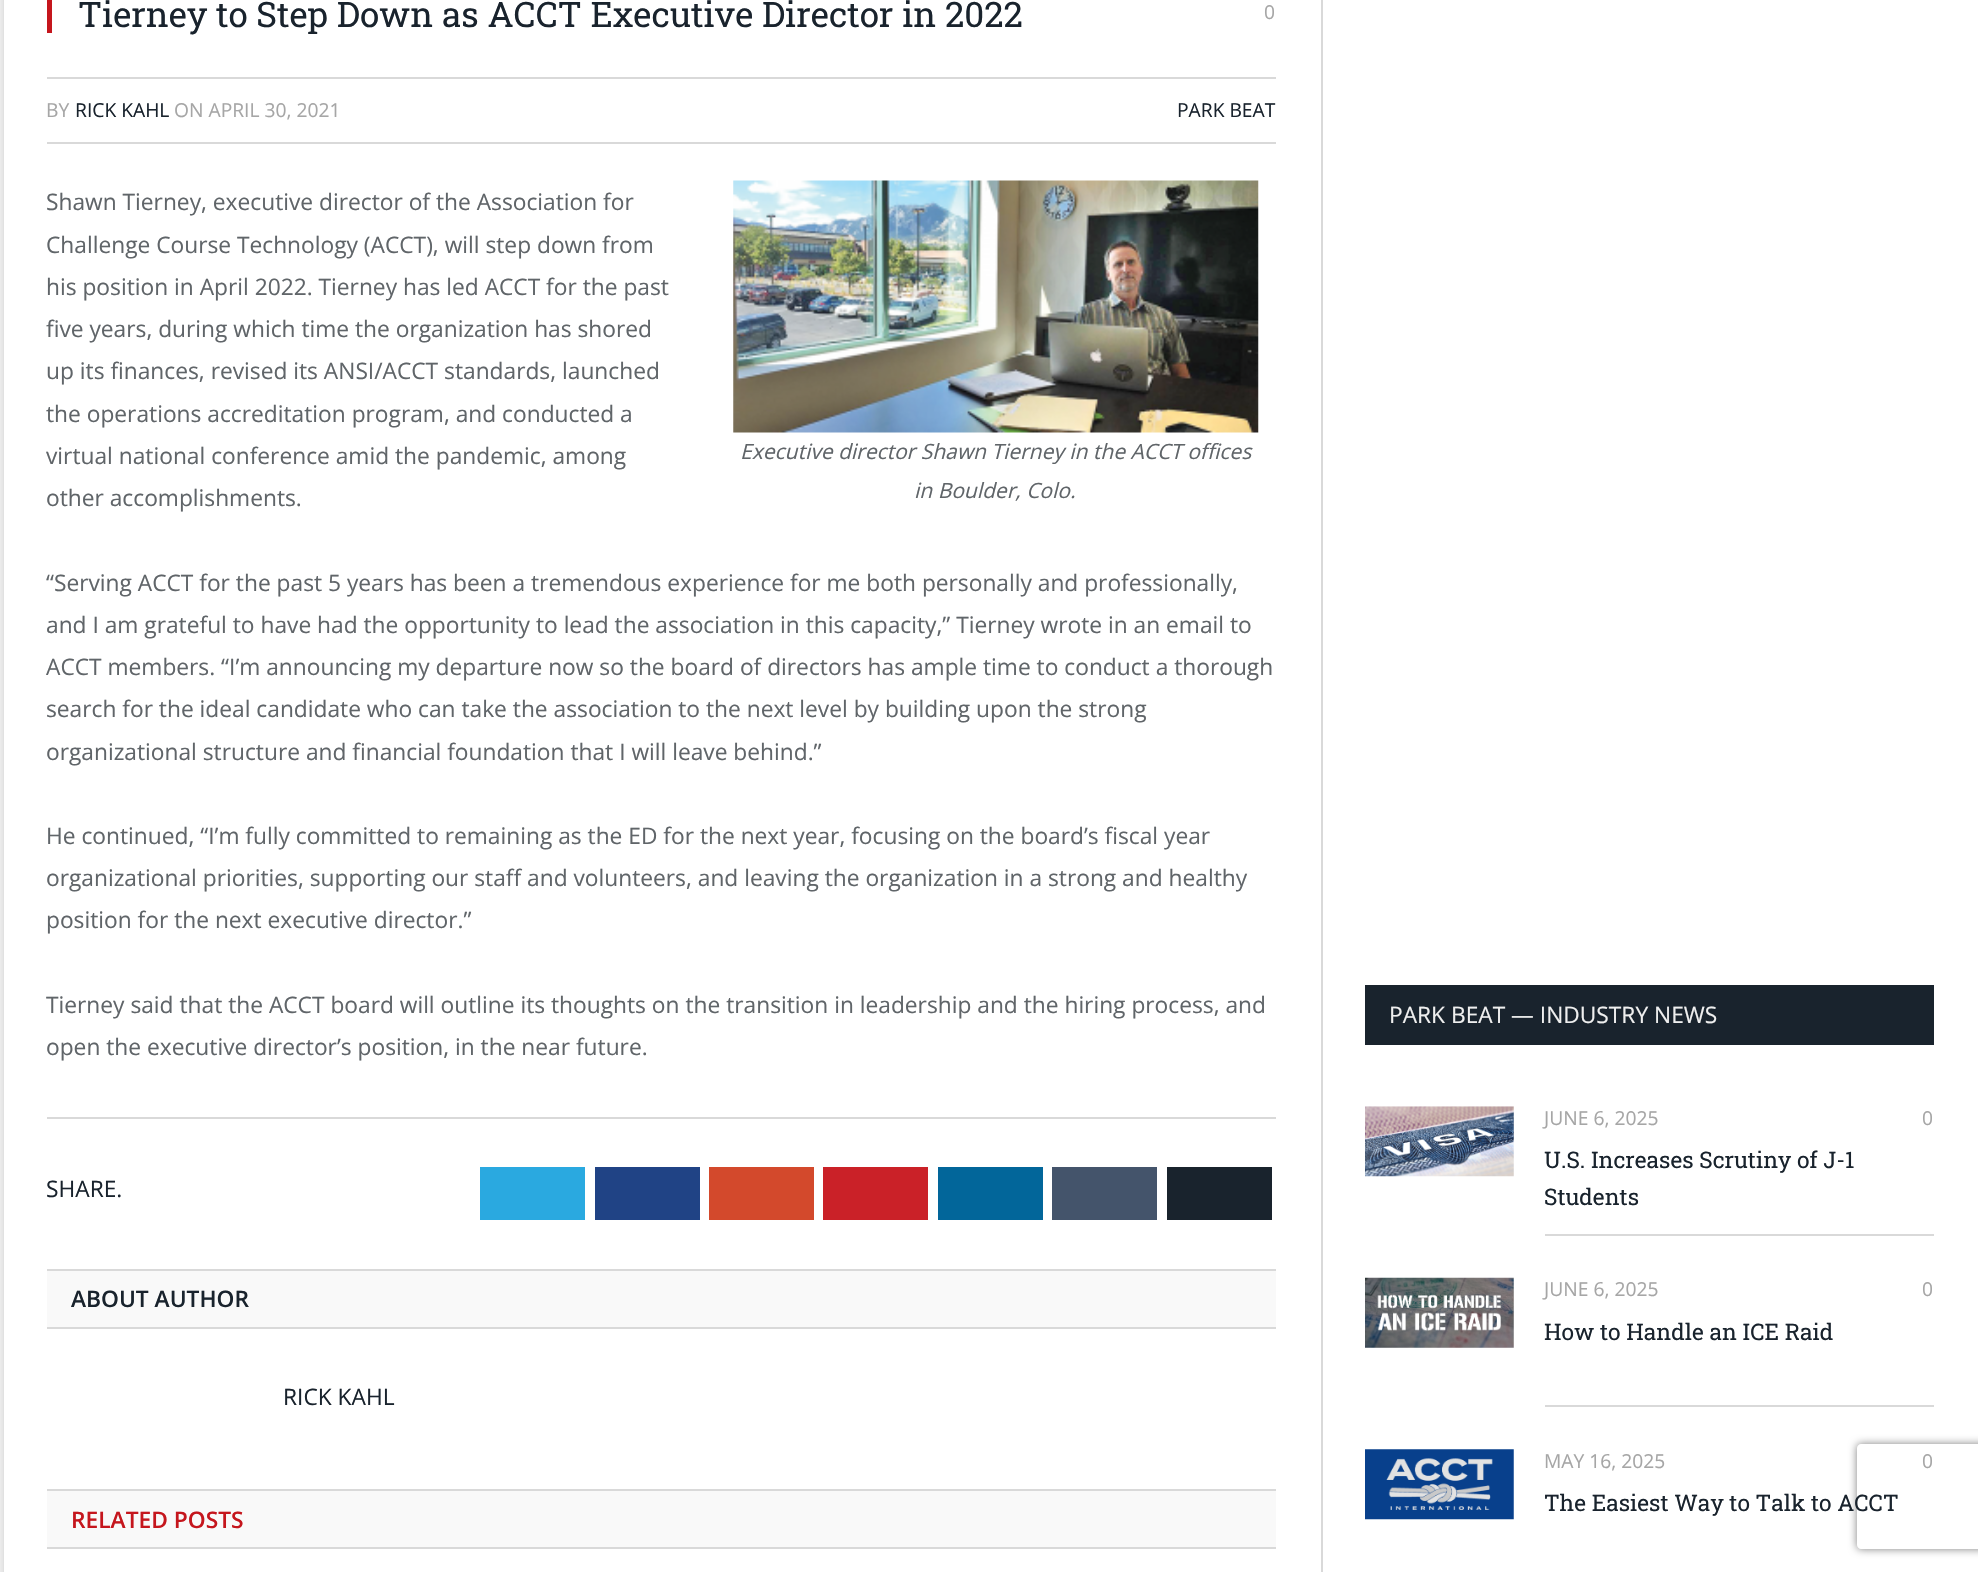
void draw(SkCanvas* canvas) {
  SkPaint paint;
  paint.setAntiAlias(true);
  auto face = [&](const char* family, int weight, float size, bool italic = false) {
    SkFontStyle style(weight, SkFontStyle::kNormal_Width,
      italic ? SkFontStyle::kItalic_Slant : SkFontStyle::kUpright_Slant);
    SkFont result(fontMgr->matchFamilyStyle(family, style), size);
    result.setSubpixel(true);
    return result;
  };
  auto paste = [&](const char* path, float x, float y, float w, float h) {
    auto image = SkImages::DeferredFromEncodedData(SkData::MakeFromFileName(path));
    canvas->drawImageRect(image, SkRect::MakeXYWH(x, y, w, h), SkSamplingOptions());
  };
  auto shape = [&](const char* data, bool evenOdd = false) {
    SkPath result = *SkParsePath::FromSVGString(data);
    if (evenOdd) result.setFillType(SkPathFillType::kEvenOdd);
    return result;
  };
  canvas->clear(0xffeeeeee);
  paint.setColor(0x1f000000);
  paint.setMaskFilter(SkMaskFilter::MakeBlur(kNormal_SkBlurStyle, 2.5f));
  canvas->drawRect(SkRect::MakeXYWH(4, -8, 1974, 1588), paint);
  paint.setMaskFilter(nullptr);
  {
    const struct { float x, y, w, h; SkColor color; } items[] = {
      {4, 0, 1974, 1572, 0xffffffff},
      {47, 0, 5, 33, 0xffc5161d},
      {47, 77, 1229, 2, 0xffd9d9d9},
      {47, 142, 1229, 2, 0xffd9d9d9},
    };
    for (auto [x, y, w, h, color] : items) {
      paint.setColor(color);
      canvas->drawRect(SkRect::MakeXYWH(x, y, w, h), paint);
    }
  }
  paste("img/1.png", 733, 180, 526, 253);
  {
    const struct { float x, y, w, h; SkColor color; } items[] = {
      {47, 1117, 1229, 2, 0xffd9d9d9},
      {480, 1167, 105, 53, 0xff2aa9e0},
      {595, 1167, 105, 53, 0xff204385},
      {709, 1167, 105, 53, 0xffd3492c},
      {823, 1167, 105, 53, 0xffca2128},
      {938, 1167, 105, 53, 0xff02669a},
      {1052, 1167, 105, 53, 0xff44546b},
      {1167, 1167, 105, 53, 0xff19232d},
      {47, 1271, 1229, 56, 0xfff9f9f9},
      {47, 1269, 1229, 2, 0xffd9d9d9},
      {47, 1327, 1229, 2, 0xffd9d9d9},
      {47, 1491, 1229, 56, 0xfff9f9f9},
      {47, 1489, 1229, 2, 0xffd9d9d9},
      {47, 1547, 1229, 2, 0xffd9d9d9},
      {1321, 0, 2, 1572, 0xffd9d9d9},
      {1365, 985, 569, 60, 0xff19232d},
    };
    for (auto [x, y, w, h, color] : items) {
      paint.setColor(color);
      canvas->drawRect(SkRect::MakeXYWH(x, y, w, h), paint);
    }
  }
  paste("img/2.png", 1365, 1106, 149, 71);
  paint.setColor(0xffd9d9d9);
  canvas->drawRect(SkRect::MakeXYWH(1545, 1234, 389, 2), paint);
  paste("img/3.png", 1365, 1277, 149, 71);
  canvas->drawRect(SkRect::MakeXYWH(1545, 1405, 389, 2), paint);
  paste("img/4.png", 1365, 1449, 149, 71);
  canvas->save();
  canvas->clipPath(shape("M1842 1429H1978V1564H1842ZM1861 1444H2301C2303 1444 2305 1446 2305 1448V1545C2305 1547 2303 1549 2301 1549H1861C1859 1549 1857 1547 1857 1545V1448C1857 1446 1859 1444 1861 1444Z", true), true);
  paint.setColor(0xff808080);
  paint.setMaskFilter(SkMaskFilter::MakeBlur(kNormal_SkBlurStyle, 4.5f));
  canvas->drawRoundRect(SkRect::MakeXYWH(1857, 1444, 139, 105), 4, 4, paint);
  paint.setMaskFilter(nullptr);
  canvas->restore();
  auto f0 = face("Roboto Slab", 400, 35);
  paint.setColor(0xff19232d);
  canvas->drawString("Tierney to Step Down as ACCT Executive Director in 2022", 78, 27, f0, paint);
  auto f1 = face("Open Sans", 400, 19.25f);
  paint.setColor(0xffa6a6a6);
  canvas->drawString("0", 1264, 19, f1, paint);
  canvas->drawString("BY", 46, 117, f1, paint);
  paint.setColor(0xff19232d);
  canvas->drawString("RICK KAHL", 75, 117, f1, paint);
  paint.setColor(0xffa6a6a6);
  canvas->drawString("ON APRIL 30, 2021", 174, 117, f1, paint);
  paint.setColor(0xff19232d);
  canvas->drawString("PARK BEAT", 1177, 117, f1, paint);
  auto f2 = face("Open Sans", 400, 22.75f);
  paint.setColor(0xff606569);
  {
    const struct { const char* s; float x, y; } items[] = {
      {"Shawn Tierney, executive director of the Association for", 46, 210},
      {"Challenge Course Technology (ACCT), will step down from", 46, 253},
      {"his position in April 2022. Tierney has led ACCT for the past", 46, 295},
      {"five years, during which time the organization has shored", 46, 337},
      {"up its finances, revised its ANSI/ACCT standards, launched", 46, 379},
      {"the operations accreditation program, and conducted a", 46, 422},
      {"virtual national conference amid the pandemic, among", 46, 464},
      {"other accomplishments.", 46, 506},
    };
    for (auto [s, x, y] : items) {
      canvas->drawString(s, x, y, f2, paint);
    }
  }
  auto f3 = face("Open Sans", 400, 21, true);
  canvas->drawString("Executive director Shawn Tierney in the ACCT offices", 740, 459, f3, paint);
  canvas->drawString("in Boulder, Colo.", 914, 498, f3, paint);
  {
    const struct { const char* s; float x, y; } items[] = {
      {"“Serving ACCT for the past 5 years has been a tremendous experience for me both personally and professionally,", 46, 591},
      {"and I am grateful to have had the opportunity to lead the association in this capacity,” Tierney wrote in an email to", 46, 633},
      {"ACCT members. “I’m announcing my departure now so the board of directors has ample time to conduct a thorough", 46, 675},
      {"search for the ideal candidate who can take the association to the next level by building upon the strong", 46, 717},
      {"organizational structure and financial foundation that I will leave behind.”", 46, 760},
      {"He continued, “I’m fully committed to remaining as the ED for the next year, focusing on the board’s fiscal year", 46, 844},
      {"organizational priorities, supporting our staff and volunteers, and leaving the organization in a strong and healthy", 46, 886},
      {"position for the next executive director.”", 46, 928},
      {"Tierney said that the ACCT board will outline its thoughts on the transition in leadership and the hiring process, and", 46, 1013},
      {"open the executive director’s position, in the near future.", 46, 1055},
    };
    for (auto [s, x, y] : items) {
      canvas->drawString(s, x, y, f2, paint);
    }
  }
  paint.setColor(0xff19232d);
  canvas->drawString("SHARE.", 46, 1197, f2, paint);
  auto f4 = face("Open Sans", 600, 22.75f);
  canvas->drawString("ABOUT AUTHOR", 71, 1307, f4, paint);
  canvas->drawString("RICK KAHL", 283, 1405, f2, paint);
  paint.setColor(0xffc5161d);
  canvas->drawString("RELATED POSTS", 71, 1528, f4, paint);
  paint.setColor(0xffefefef);
  canvas->drawString("PARK BEAT — INDUSTRY NEWS", 1389, 1023, f2, paint);
  paint.setColor(0xffa6a6a6);
  canvas->drawString("JUNE 6, 2025", 1544, 1125, f1, paint);
  canvas->drawString("0", 1922, 1125, f1, paint);
  auto f5 = face("Roboto Slab", 400, 22.75f);
  paint.setColor(0xff19232d);
  canvas->drawString("U.S. Increases Scrutiny of J-1", 1544, 1168, f5, paint);
  canvas->drawString("Students", 1544, 1205, f5, paint);
  paint.setColor(0xffa6a6a6);
  canvas->drawString("JUNE 6, 2025", 1544, 1296, f1, paint);
  canvas->drawString("0", 1922, 1296, f1, paint);
  paint.setColor(0xff19232d);
  canvas->drawString("How to Handle an ICE Raid", 1544, 1340, f5, paint);
  paint.setColor(0xffa6a6a6);
  canvas->drawString("MAY 16, 2025", 1544, 1468, f1, paint);
  canvas->drawString("0", 1922, 1468, f1, paint);
  paint.setColor(0xff19232d);
  canvas->drawString("The Easiest Way to Talk to ACCT", 1544, 1511, f5, paint);
}
